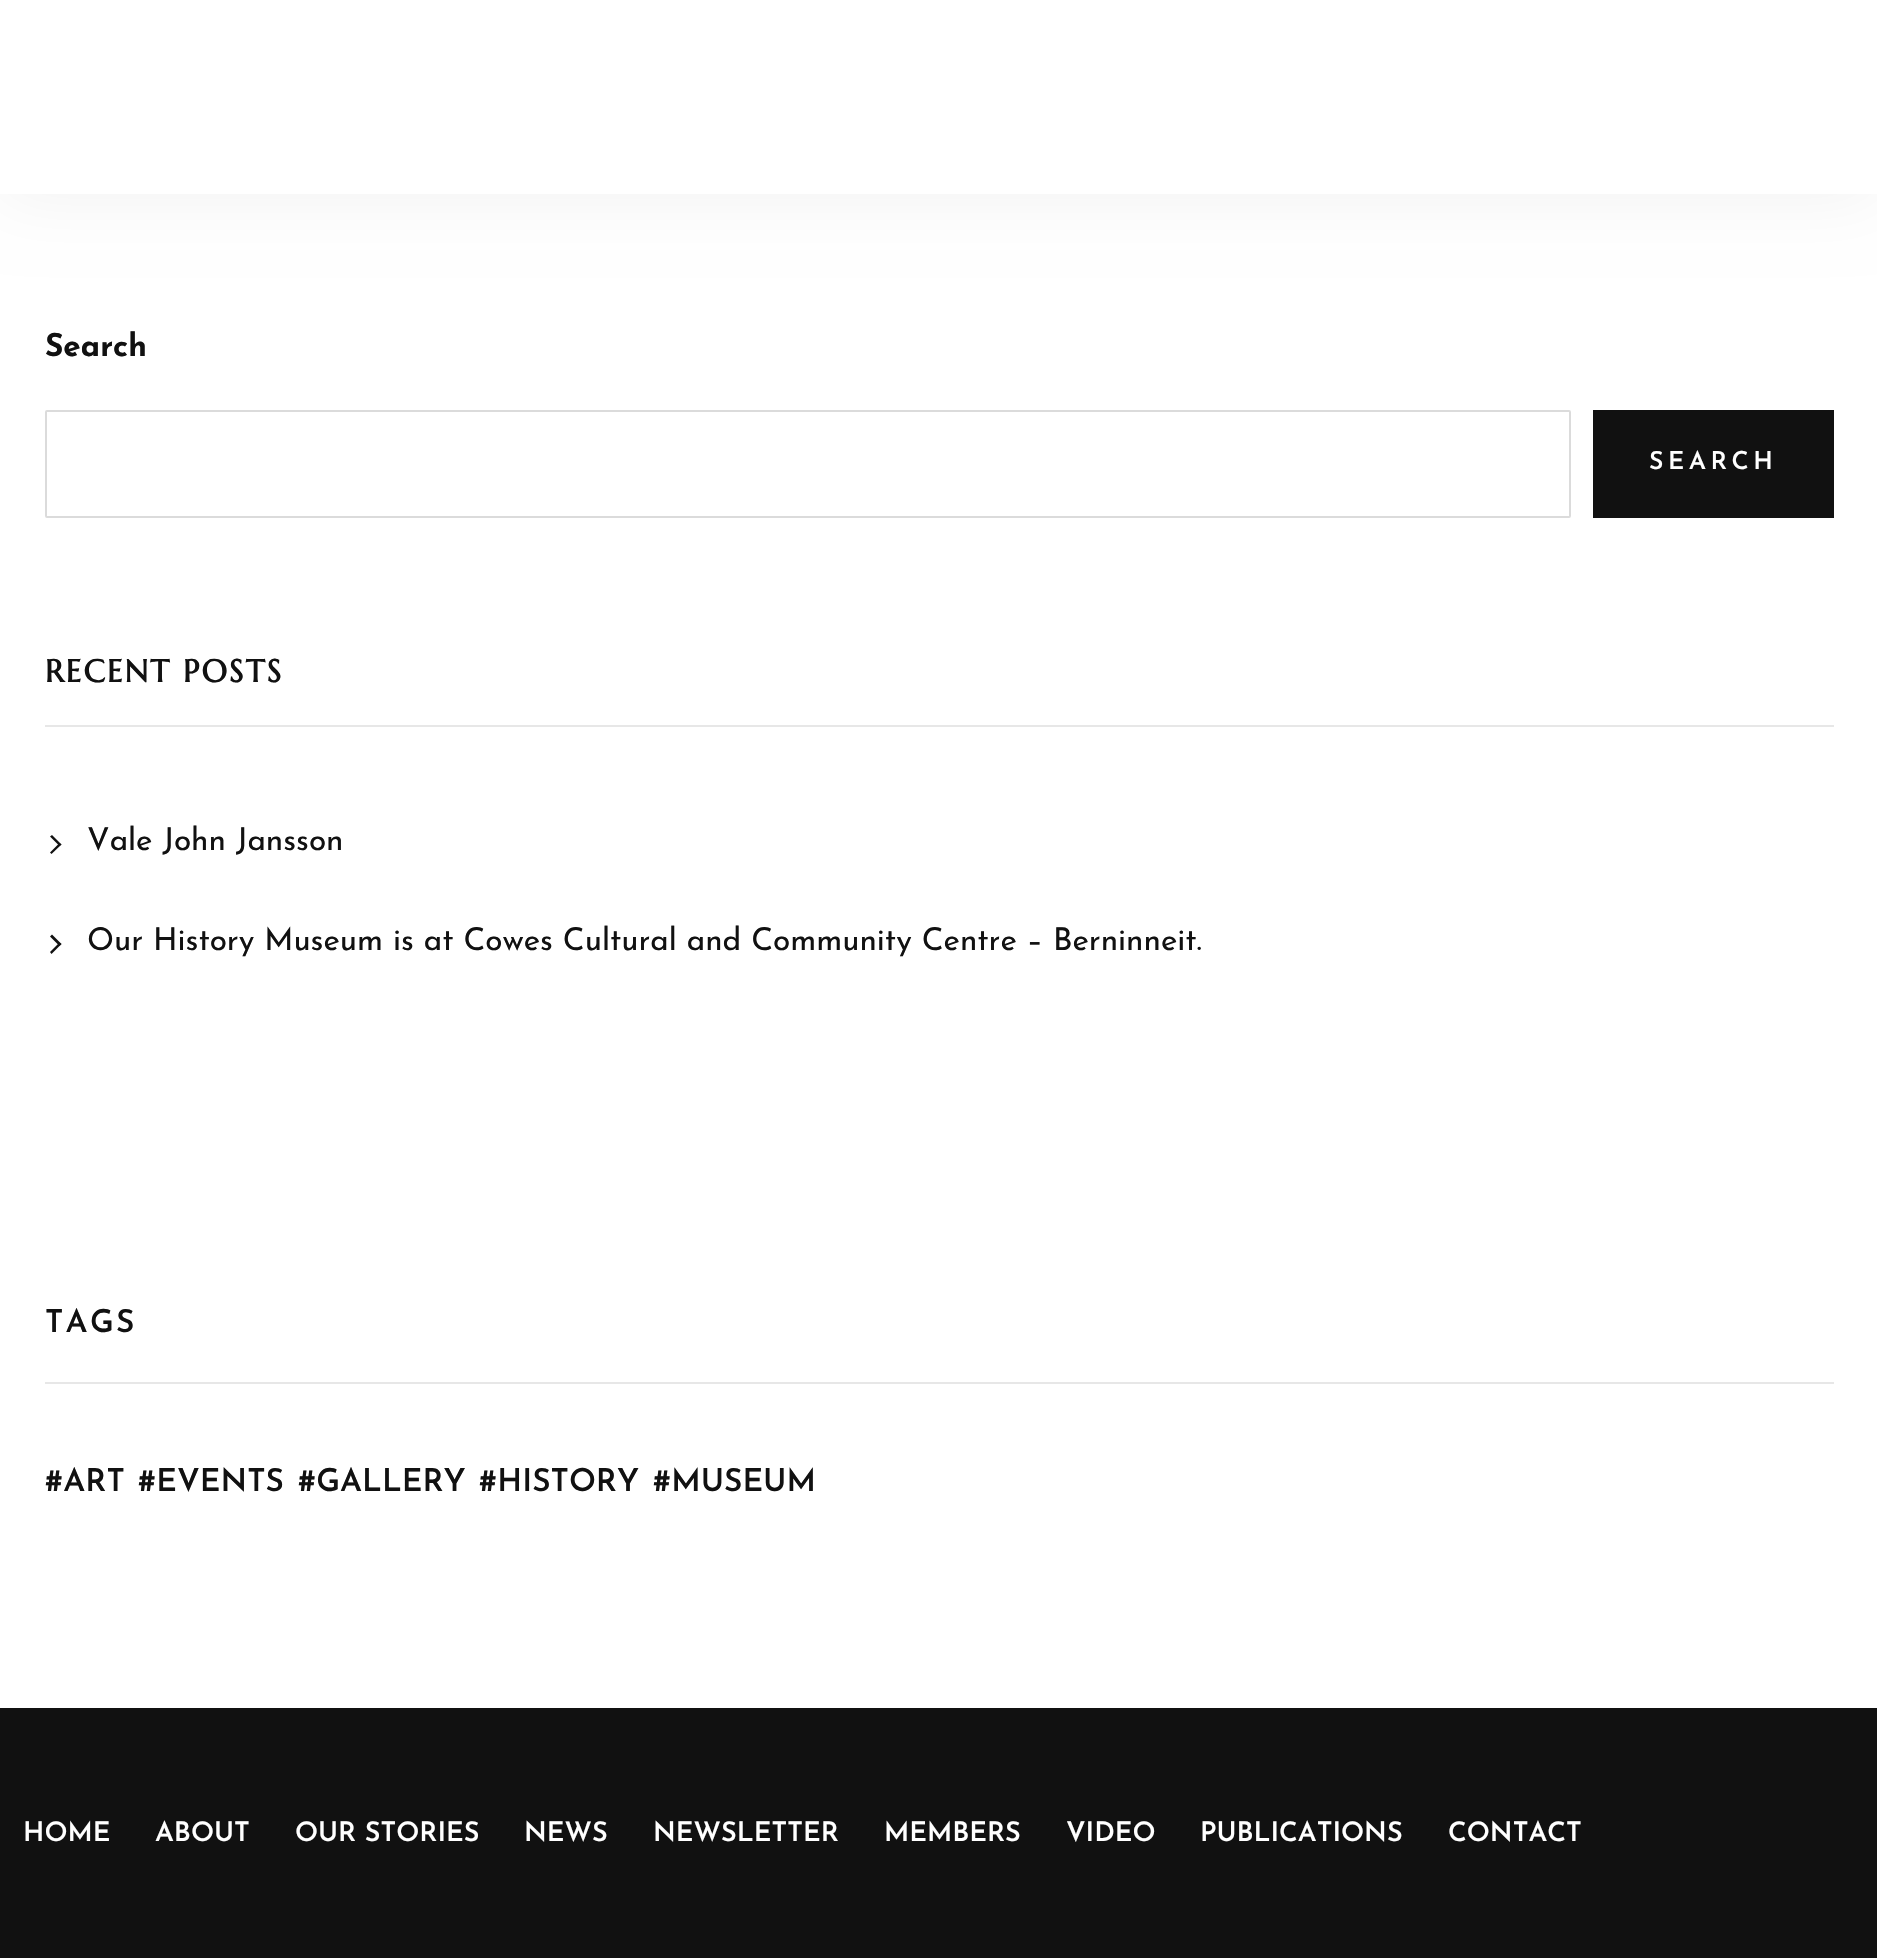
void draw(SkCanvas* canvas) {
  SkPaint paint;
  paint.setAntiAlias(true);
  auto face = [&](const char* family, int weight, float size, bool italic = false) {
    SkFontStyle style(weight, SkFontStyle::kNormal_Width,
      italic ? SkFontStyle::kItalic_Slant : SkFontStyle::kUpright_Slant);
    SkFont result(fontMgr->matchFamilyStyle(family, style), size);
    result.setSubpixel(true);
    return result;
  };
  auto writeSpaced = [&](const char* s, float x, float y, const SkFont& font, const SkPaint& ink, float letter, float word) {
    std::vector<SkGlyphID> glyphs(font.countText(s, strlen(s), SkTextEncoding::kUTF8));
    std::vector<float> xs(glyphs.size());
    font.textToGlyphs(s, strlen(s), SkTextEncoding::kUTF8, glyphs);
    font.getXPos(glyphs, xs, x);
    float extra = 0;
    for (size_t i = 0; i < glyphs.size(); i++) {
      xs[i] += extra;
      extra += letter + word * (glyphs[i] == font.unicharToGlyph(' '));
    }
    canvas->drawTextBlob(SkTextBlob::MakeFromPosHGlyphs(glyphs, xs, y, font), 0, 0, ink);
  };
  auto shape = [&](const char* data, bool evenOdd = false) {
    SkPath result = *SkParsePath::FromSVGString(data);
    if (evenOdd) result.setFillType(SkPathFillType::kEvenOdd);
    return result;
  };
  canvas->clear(0xffffffff);
  paint.setColor(0x0d000000);
  paint.setMaskFilter(SkMaskFilter::MakeBlur(kNormal_SkBlurStyle, 34));
  canvas->drawRect(SkRect::MakeXYWH(0, 2, 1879, 194), paint);
  paint.setMaskFilter(nullptr);
  paint.setColor(0xffffffff);
  canvas->drawRect(SkRect::MakeXYWH(0, 0, 1877, 194), paint);
  paint.setStroke(true);
  paint.setStrokeWidth(2);
  paint.setColor(0xffdbdbdb);
  canvas->drawRoundRect(SkRect::MakeXYWH(46, 411, 1524, 106), 1, 1, paint);
  paint.setStroke(false);
  paint.setColor(0xff111111);
  canvas->drawRect(SkRect::MakeXYWH(1593, 410, 241, 108), paint);
  paint.setColor(0xffe7e7e7);
  canvas->drawRect(SkRect::MakeXYWH(45, 725, 1789, 2), paint);
  paint.setColor(0xff111111);
  canvas->drawPath(shape("M61.5 844.5L51.5 854L50 852.5L59.5 843Z"), paint);
  canvas->drawPath(shape("M61.5 844.5L59.5 846L50 836.5L52 835Z"), paint);
  canvas->drawPath(shape("M61.5 944L51.5 954L50 952L59.5 942.5Z"), paint);
  canvas->drawPath(shape("M61.5 944L59.5 946L50 936.5L52 934.5Z"), paint);
  paint.setColor(0xffe7e7e7);
  canvas->drawRect(SkRect::MakeXYWH(45, 1382, 1789, 2), paint);
  paint.setColor(0xff111111);
  canvas->drawRect(SkRect::MakeXYWH(0, 1708, 1877, 250), paint);
  auto f0 = face("Josefin Sans", 700, 31.5f);
  canvas->drawString("Search", 45, 356, f0, paint);
  auto f1 = face("Josefin Sans", 600, 24.75f);
  paint.setColor(0xffffffff);
  writeSpaced("SEARCH", 1649, 469, f1, paint, 4.5f, 0);
  auto f2 = face("Marcellus", 700, 31.5f);
  paint.setColor(0xff111111);
  writeSpaced("RECENT POSTS", 45, 682, f2, paint, 2.25f, 0);
  auto f3 = face("Josefin Sans", 400, 31.5f);
  canvas->drawString("Vale John Jansson", 87, 850, f3, paint);
  canvas->drawString("Our History Museum is at Cowes Cultural and Community Centre – Berninneit.", 87, 950, f3, paint);
  auto f4 = face("Josefin Sans", 600, 31.5f);
  writeSpaced("TAGS", 45, 1332, f4, paint, 2.25f, 0);
  {
    const struct { const char* s; float x, y; } items[] = {
      {"#ART", 45, 1491},
      {"#EVENTS", 138, 1491},
      {"#GALLERY", 298, 1491},
      {"#HISTORY", 479, 1491},
      {"#MUSEUM", 653, 1491},
    };
    for (auto [s, x, y] : items) {
      canvas->drawString(s, x, y, f4, paint);
    }
  }
  auto f5 = face("Josefin Sans", 600, 27);
  paint.setColor(0xffffffff);
  {
    const struct { const char* s; float x, y; } items[] = {
      {"HOME", 23, 1841},
      {"ABOUT", 155, 1841},
      {"OUR STORIES", 295, 1841},
      {"NEWS", 524, 1841},
      {"NEWSLETTER", 653, 1841},
      {"MEMBERS", 884, 1841},
      {"VIDEO", 1066, 1841},
      {"PUBLICATIONS", 1200, 1841},
      {"CONTACT", 1448, 1841},
    };
    for (auto [s, x, y] : items) {
      canvas->drawString(s, x, y, f5, paint);
    }
  }
}
